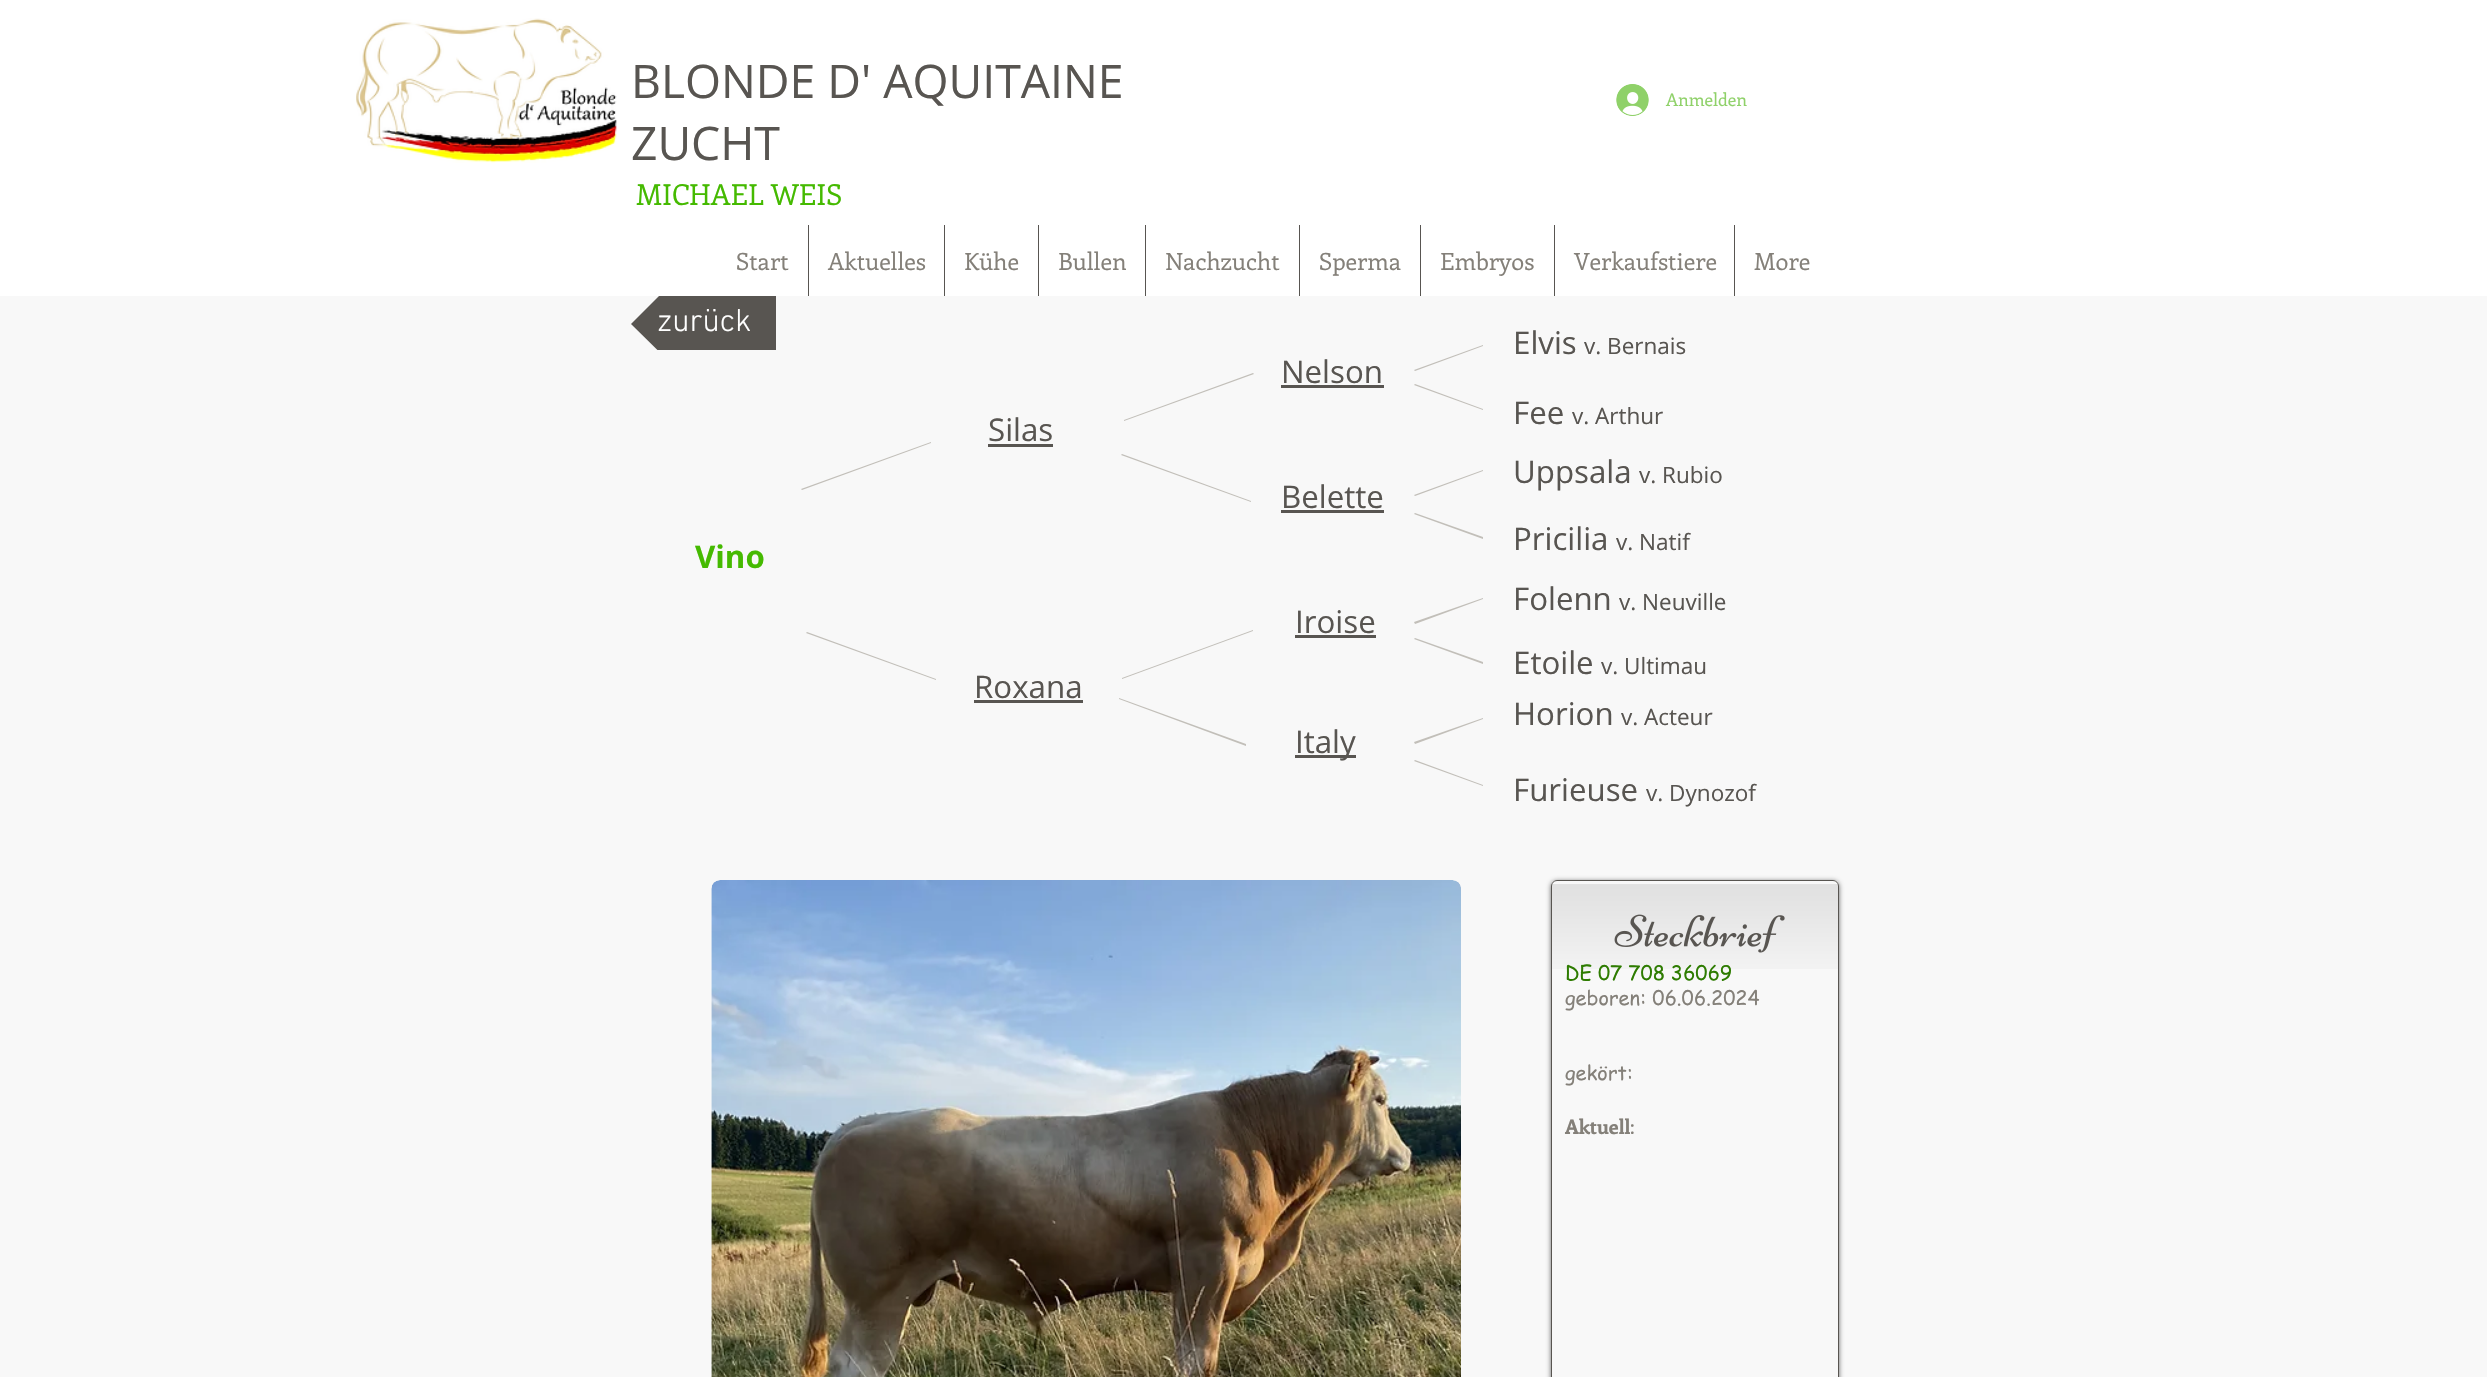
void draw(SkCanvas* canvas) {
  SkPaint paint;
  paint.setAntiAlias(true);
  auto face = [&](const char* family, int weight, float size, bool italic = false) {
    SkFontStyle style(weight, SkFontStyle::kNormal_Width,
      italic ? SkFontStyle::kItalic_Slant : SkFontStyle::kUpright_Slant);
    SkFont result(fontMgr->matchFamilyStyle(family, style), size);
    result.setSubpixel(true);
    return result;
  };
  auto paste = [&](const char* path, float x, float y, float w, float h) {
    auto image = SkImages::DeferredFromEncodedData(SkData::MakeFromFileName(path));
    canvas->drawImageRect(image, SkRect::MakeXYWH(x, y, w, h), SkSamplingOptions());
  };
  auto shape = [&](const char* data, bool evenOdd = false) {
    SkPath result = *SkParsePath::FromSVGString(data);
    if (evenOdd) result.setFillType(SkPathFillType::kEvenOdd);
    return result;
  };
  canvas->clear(0xfff8f8f8);
  paint.setColor(0xffffffff);
  canvas->drawRect(SkRect::MakeXYWH(0, 0, 2487, 296), paint);
  paste("img/1.png", 356, 18, 261, 145);
  paste("img/2.png", 1616, 84, 33, 32);
  {
    const struct { float x, y, w, h; SkColor color; } items[] = {
      {808, 225, 1, 71, 0xff585551},
      {944, 225, 1, 71, 0xff585551},
      {1038, 225, 1, 71, 0xff585551},
      {1145, 225, 1, 71, 0xff585551},
      {1299, 225, 1, 71, 0xff585551},
      {1420, 225, 1, 71, 0xff585551},
      {1554, 225, 1, 71, 0xff585551},
      {1734, 225, 1, 71, 0xff585551},
    };
    for (auto [x, y, w, h, color] : items) {
      paint.setColor(color);
      canvas->drawRect(SkRect::MakeXYWH(x, y, w, h), paint);
    }
  }
  canvas->save();
  canvas->clipRect(SkRect::MakeXYWH(631, 296, 145, 54));
  canvas->drawPath(shape("M694 324H631L694 261ZM631 324H694V386Z"), paint);
  canvas->restore();
  canvas->drawRect(SkRect::MakeXYWH(694, 296, 82, 54), paint);
  paint.setColor(0xffc2bfb9);
  canvas->drawPath(shape("M1124 420L1253 373L1254 374L1124 421Z"), paint);
  paint.setColor(0xff585551);
  canvas->drawRect(SkRect::MakeXYWH(1281, 385, 103, 3), paint);
  paint.setColor(0xffc2bfb9);
  canvas->drawPath(shape("M1414 370L1483 345V346L1415 371Z"), paint);
  canvas->drawPath(shape("M1415 384L1483 409V410L1414 385Z"), paint);
  canvas->drawPath(shape("M1414 495L1483 470V471L1415 496Z"), paint);
  canvas->drawPath(shape("M1415 513L1483 537V539L1414 514Z"), paint);
  canvas->drawPath(shape("M1414 622L1483 598V599L1415 624Z"), paint);
  canvas->drawPath(shape("M1415 638L1483 662V664L1414 639Z"), paint);
  canvas->drawPath(shape("M1414 742L1483 718V719L1415 744Z"), paint);
  canvas->drawPath(shape("M1415 760L1483 785V786L1414 761Z"), paint);
  paint.setColor(0xff585551);
  canvas->drawRect(SkRect::MakeXYWH(988, 444, 65, 3), paint);
  paint.setColor(0xffc2bfb9);
  canvas->drawPath(shape("M801 489L931 442V443L802 490Z"), paint);
  canvas->drawPath(shape("M1122 454L1251 501V502L1121 455Z"), paint);
  paint.setColor(0xff585551);
  canvas->drawRect(SkRect::MakeXYWH(1281, 510, 103, 3), paint);
  canvas->drawRect(SkRect::MakeXYWH(1295, 635, 81, 3), paint);
  paint.setColor(0xffc2bfb9);
  canvas->drawPath(shape("M807 632L936 679V680L806 633Z"), paint);
  canvas->drawPath(shape("M1122 678L1253 630V631L1122 679Z"), paint);
  paint.setColor(0xff585551);
  canvas->drawRect(SkRect::MakeXYWH(974, 700, 109, 3), paint);
  paint.setColor(0xffc2bfb9);
  canvas->drawPath(shape("M1119 698L1246 744V746L1119 699Z"), paint);
  paint.setColor(0xff585551);
  canvas->drawRect(SkRect::MakeXYWH(1295, 755, 61, 3), paint);
  paste("img/3.png", 711, 880, 750, 497);
  canvas->save();
  canvas->clipPath(shape("M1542 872H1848V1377H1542ZM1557 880H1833C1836.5 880 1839 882.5 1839 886V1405C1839 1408.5 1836.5 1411 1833 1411H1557C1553.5 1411 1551 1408.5 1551 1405V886C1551 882.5 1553.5 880 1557 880Z", true), true);
  paint.setColor(0x99000000);
  paint.setMaskFilter(SkMaskFilter::MakeBlur(kNormal_SkBlurStyle, 2.5f));
  canvas->drawRoundRect(SkRect::MakeXYWH(1551, 881, 288, 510), 6, 6, paint);
  paint.setMaskFilter(nullptr);
  canvas->restore();
  paint.setColor(0x80f8f8f8);
  canvas->drawRoundRect(SkRect::MakeXYWH(1551, 880, 288, 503), 6, 6, paint);
  paste("img/4.png", 1551, 884, 288, 85);
  paint.setStroke(true);
  paint.setStrokeWidth(1);
  paint.setColor(0xff585551);
  canvas->drawRoundRect(SkRect::MakeXYWH(1551.5f, 880.5f, 287, 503), 5.5f, 5.5f, paint);
  paste("img/5.png", 1614, 914, 171, 39);
  auto f0 = face("Open Sans", 400, 46.25f);
  paint.setStroke(false);
  canvas->drawString("BLONDE D' AQUITAINE", 631, 98, f0, paint);
  canvas->drawString("ZUCHT", 631, 160, f0, paint);
  auto f1 = face("Enriqueta", 400, 28.75f);
  paint.setColor(0xff45ba01);
  canvas->drawString("MICHAEL WEIS", 636, 205, f1, paint);
  auto f2 = face("Enriqueta", 400, 17.5f);
  paint.setColor(0xff8fd169);
  canvas->drawString("Anmelden", 1666, 106, f2, paint);
  auto f3 = face("Enriqueta", 400, 23.75f);
  paint.setColor(0xff848079);
  {
    const struct { const char* s; float x, y; } items[] = {
      {"Start", 736, 270},
      {"Aktuelles", 828, 270},
      {"Kühe", 964, 270},
      {"Bullen", 1058, 270},
      {"Nachzucht", 1165, 270},
      {"Sperma", 1319, 270},
      {"Embryos", 1440, 270},
      {"Verkaufstiere", 1574, 270},
      {"More", 1754, 270},
    };
    for (auto [s, x, y] : items) {
      canvas->drawString(s, x, y, f3, paint);
    }
  }
  auto f4 = face("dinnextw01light", 300, 32.5f);
  paint.setColor(0xffffffff);
  canvas->drawString("zurück", 657, 331, f4, paint);
  auto f5 = face("Open Sans", 400, 31.25f);
  paint.setColor(0xff585551);
  canvas->drawString("Elvis", 1513, 354, f5, paint);
  auto f6 = face("Open Sans", 400, 22.5f);
  canvas->drawString("v. Bernais", 1584, 354, f6, paint);
  canvas->drawString("Nelson", 1281, 383, f5, paint);
  canvas->drawString("Fee", 1513, 424, f5, paint);
  canvas->drawString("v. Arthur", 1572, 424, f6, paint);
  canvas->drawString("Silas", 988, 441, f5, paint);
  canvas->drawString("Uppsala", 1513, 483, f5, paint);
  canvas->drawString("v. Rubio", 1639, 483, f6, paint);
  canvas->drawString("Belette", 1281, 508, f5, paint);
  canvas->drawString("Pricilia", 1513, 550, f5, paint);
  canvas->drawString("v. Natif", 1616, 550, f6, paint);
  auto f7 = face("Open Sans", 700, 31.25f);
  paint.setColor(0xff45ba01);
  canvas->drawString("Vino", 695, 568, f7, paint);
  paint.setColor(0xff585551);
  canvas->drawString("Folenn", 1513, 610, f5, paint);
  canvas->drawString("v. Neuville", 1619, 610, f6, paint);
  canvas->drawString("Iroise", 1295, 633, f5, paint);
  canvas->drawString("Etoile", 1513, 674, f5, paint);
  canvas->drawString("v. Ultimau", 1601, 674, f6, paint);
  canvas->drawString("Roxana", 974, 698, f5, paint);
  canvas->drawString("Horion", 1513, 725, f5, paint);
  canvas->drawString("v. Acteur", 1621, 725, f6, paint);
  canvas->drawString("Italy", 1295, 753, f5, paint);
  canvas->drawString("Furieuse", 1513, 801, f5, paint);
  canvas->drawString("v. Dynozof", 1646, 801, f6, paint);
  auto f8 = face("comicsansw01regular", 400, 20);
  paint.setColor(0xff2e7c01);
  canvas->drawString("DE 07 708 36069", 1565, 980, f8, paint);
  paint.setColor(0xff848079);
  canvas->drawString("geboren: 06.06.2024", 1565, 1005, f8, paint);
  canvas->drawString("gekört:", 1565, 1080, f8, paint);
  auto f9 = face("Enriqueta", 700, 20);
  canvas->drawString("Aktuell", 1565, 1134, f9, paint);
  auto f10 = face("Enriqueta", 400, 20);
  canvas->drawString(":", 1630, 1134, f10, paint);
}
